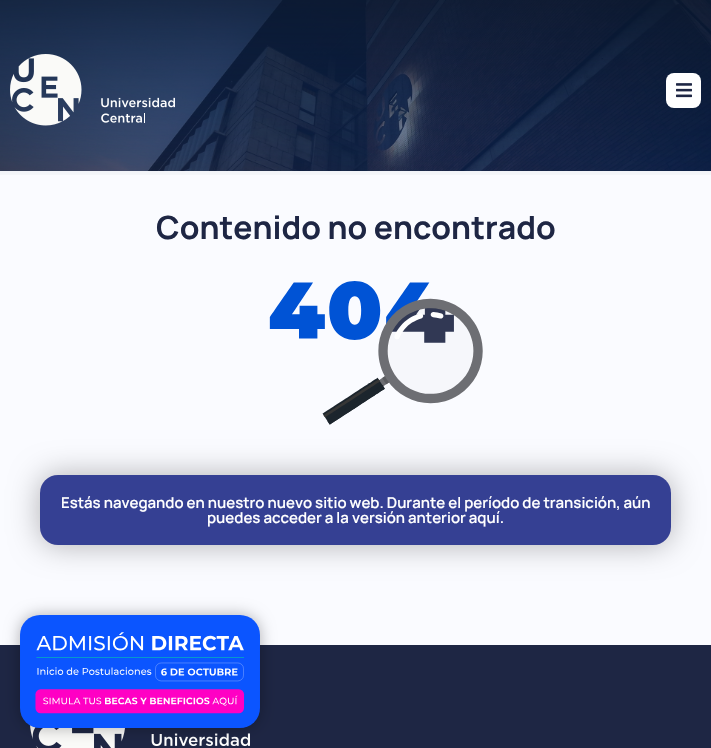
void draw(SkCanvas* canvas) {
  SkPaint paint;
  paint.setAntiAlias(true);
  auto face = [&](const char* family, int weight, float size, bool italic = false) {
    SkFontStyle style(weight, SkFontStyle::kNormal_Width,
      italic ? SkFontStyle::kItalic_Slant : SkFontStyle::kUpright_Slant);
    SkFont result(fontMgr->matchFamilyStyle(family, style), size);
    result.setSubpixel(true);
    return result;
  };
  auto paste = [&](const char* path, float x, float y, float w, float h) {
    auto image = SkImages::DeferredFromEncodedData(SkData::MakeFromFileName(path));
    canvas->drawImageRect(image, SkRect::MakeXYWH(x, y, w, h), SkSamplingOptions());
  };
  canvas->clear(0xfffafbff);
  paste("img/3.png", 0, 0, 711, 171);
  {
    const SkColor colors[] = {0xbd0c182d, 0x000c182d};
    const float stops[] = {0, 1};
    const SkPoint ends[] = {{356, 0}, {356, 180}};
    paint.setShader(SkGradientShader::MakeLinear(ends, colors, stops, 2, SkTileMode::kClamp));
    paint.setAlpha(255);
  }
  canvas->drawRect(SkRect::MakeXYWH(0, 0, 711, 175), paint);
  paste("img/1.png", 10, 54, 165, 72);
  paint.setShader(nullptr);
  paint.setColor(0xffffffff);
  canvas->drawRoundRect(SkRect::MakeXYWH(666, 73, 35, 35), 8, 8, paint);
  paste("img/2.png", 676, 83, 16, 15);
  paste("img/4.png", 269, 281, 214, 144);
  paint.setColor(0x4d000000);
  paint.setMaskFilter(SkMaskFilter::MakeBlur(kNormal_SkBlurStyle, 15));
  canvas->drawRoundRect(SkRect::MakeXYWH(40, 475, 631, 70), 18, 18, paint);
  paint.setMaskFilter(nullptr);
  paint.setColor(0xff354093);
  canvas->drawRoundRect(SkRect::MakeXYWH(40, 475, 631, 70), 18, 18, paint);
  paint.setColor(0xff1e2644);
  canvas->drawRect(SkRect::MakeXYWH(0, 645, 711, 103), paint);
  paste("img/6.png", 30, 725, 220, 23);
  paint.setColor(0x4d000000);
  paint.setMaskFilter(SkMaskFilter::MakeBlur(kNormal_SkBlurStyle, 7.5f));
  canvas->drawRoundRect(SkRect::MakeXYWH(20, 615, 240, 113), 20, 20, paint);
  paint.setMaskFilter(nullptr);
  paste("img/5.png", 20, 615, 240, 113);
  auto f0 = face("Manrope", 700, 32);
  paint.setColor(0xff1e2644);
  canvas->drawString("Contenido no encontrado", 156, 239, f0, paint);
  auto f1 = face("Manrope", 600, 15);
  paint.setColor(0xffffffff);
  canvas->drawString("Estás navegando en nuestro nuevo sitio web. Durante el período de transición, aún", 61, 508, f1, paint);
  canvas->drawString("puedes acceder a la versión anterior aquí.", 207, 523, f1, paint);
}
